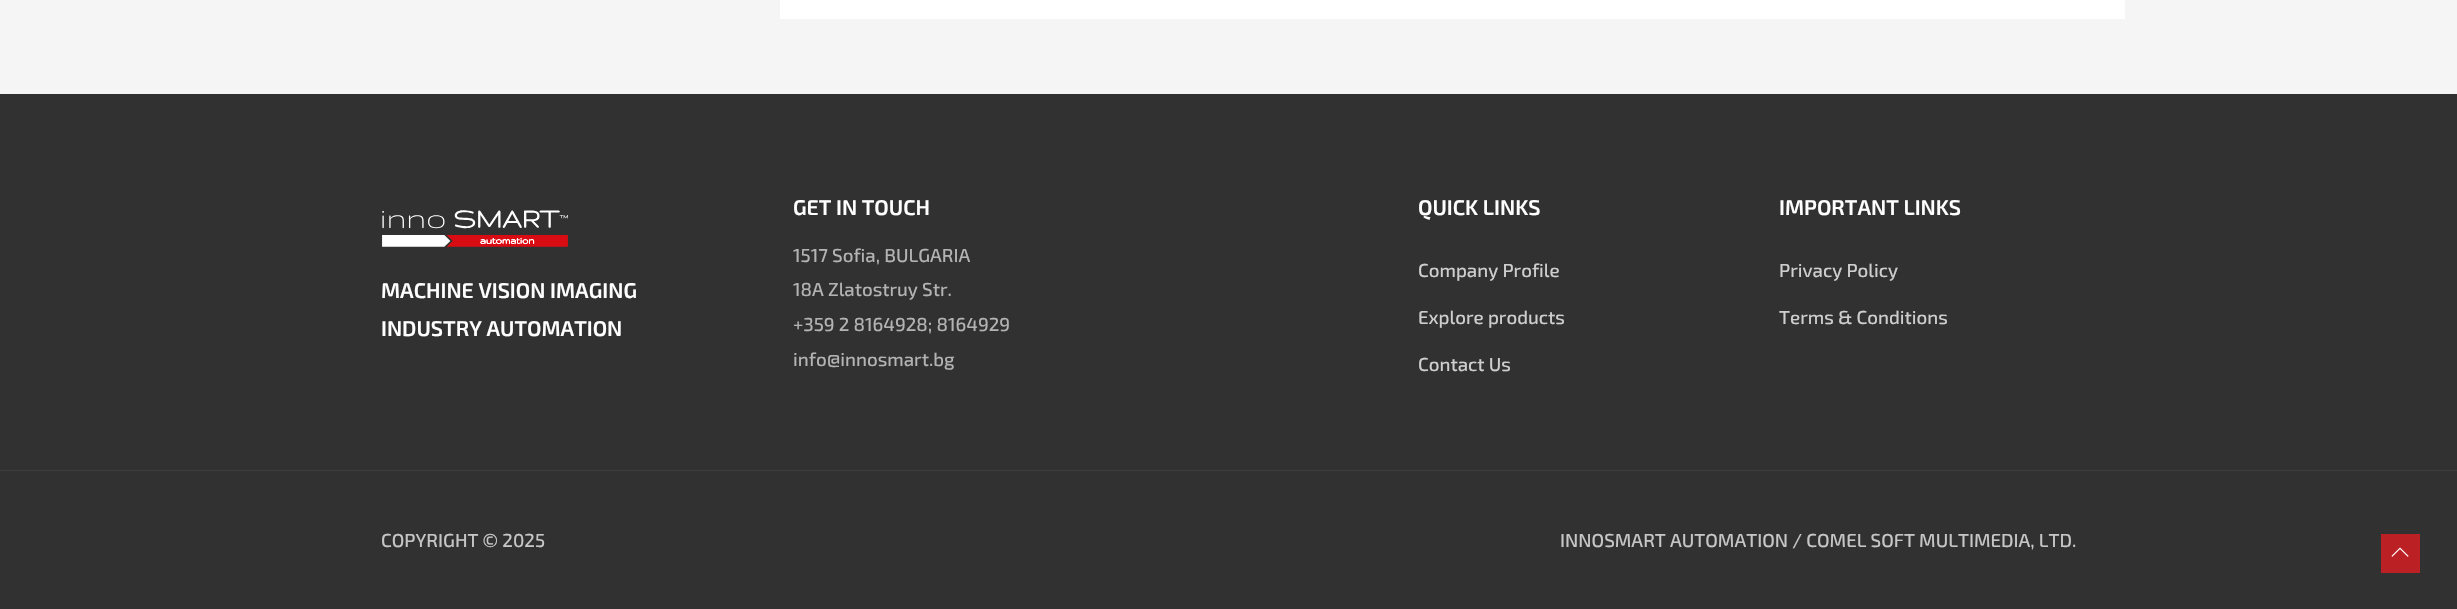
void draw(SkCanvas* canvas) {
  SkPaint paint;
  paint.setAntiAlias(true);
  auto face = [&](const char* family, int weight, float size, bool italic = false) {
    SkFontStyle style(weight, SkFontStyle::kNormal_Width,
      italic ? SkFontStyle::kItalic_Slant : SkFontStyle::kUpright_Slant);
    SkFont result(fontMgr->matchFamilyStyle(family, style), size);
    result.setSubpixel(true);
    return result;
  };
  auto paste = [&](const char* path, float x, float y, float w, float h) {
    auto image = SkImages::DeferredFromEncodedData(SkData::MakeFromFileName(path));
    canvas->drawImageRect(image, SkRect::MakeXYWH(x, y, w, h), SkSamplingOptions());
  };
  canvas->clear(0xfff5f5f5);
  paint.setColor(0xffffffff);
  canvas->drawRect(SkRect::MakeXYWH(780, 0, 1345, 19), paint);
  paint.setColor(0xff313131);
  canvas->drawRect(SkRect::MakeXYWH(0, 94, 2457, 376), paint);
  paste("img/1.png", 382, 210, 186, 37);
  {
    const struct { float x, y, w, h; SkColor color; } items[] = {
      {0, 471, 2457, 138, 0xff313131},
      {0, 470, 2457, 1, 0xff3d3d3d},
      {2381, 534, 39, 39, 0xffbb2025},
    };
    for (auto [x, y, w, h, color] : items) {
      paint.setColor(color);
      canvas->drawRect(SkRect::MakeXYWH(x, y, w, h), paint);
    }
  }
  paste("img/2.png", 2391, 547, 18, 10);
  auto f0 = face("Exo 2", 600, 21.25f);
  paint.setColor(0xffffffff);
  {
    const struct { const char* s; float x, y; } items[] = {
      {"MACHINE VISION IMAGING", 381, 298},
      {"INDUSTRY AUTOMATION", 381, 336},
      {"GET IN TOUCH", 793, 215},
    };
    for (auto [s, x, y] : items) {
      canvas->drawString(s, x, y, f0, paint);
    }
  }
  auto f1 = face("Exo 2", 500, 18.75f);
  paint.setColor(0xffb3b3b3);
  {
    const struct { const char* s; float x, y; } items[] = {
      {"1517 Sofia, BULGARIA", 793, 262},
      {"18A Zlatostruy Str.", 793, 296},
      {"+359 2 8164928; 8164929", 793, 331},
      {"info@innosmart.bg", 793, 366},
    };
    for (auto [s, x, y] : items) {
      canvas->drawString(s, x, y, f1, paint);
    }
  }
  paint.setColor(0xffffffff);
  canvas->drawString("QUICK LINKS", 1418, 215, f0, paint);
  paint.setColor(0xffcecece);
  {
    const struct { const char* s; float x, y; } items[] = {
      {"Company Profile", 1418, 277},
      {"Explore products", 1418, 324},
      {"Contact Us", 1418, 371},
    };
    for (auto [s, x, y] : items) {
      canvas->drawString(s, x, y, f1, paint);
    }
  }
  paint.setColor(0xffffffff);
  canvas->drawString("IMPORTANT LINKS", 1779, 215, f0, paint);
  paint.setColor(0xffcecece);
  canvas->drawString("Privacy Policy", 1779, 277, f1, paint);
  canvas->drawString("Terms & Conditions", 1779, 324, f1, paint);
  paint.setColor(0xffc6c6c6);
  canvas->drawString("COPYRIGHT © 2025", 381, 547, f1, paint);
  canvas->drawString("INNOSMART AUTOMATION / COMEL SOFT MULTIMEDIA, LTD.", 1560, 547, f1, paint);
}
